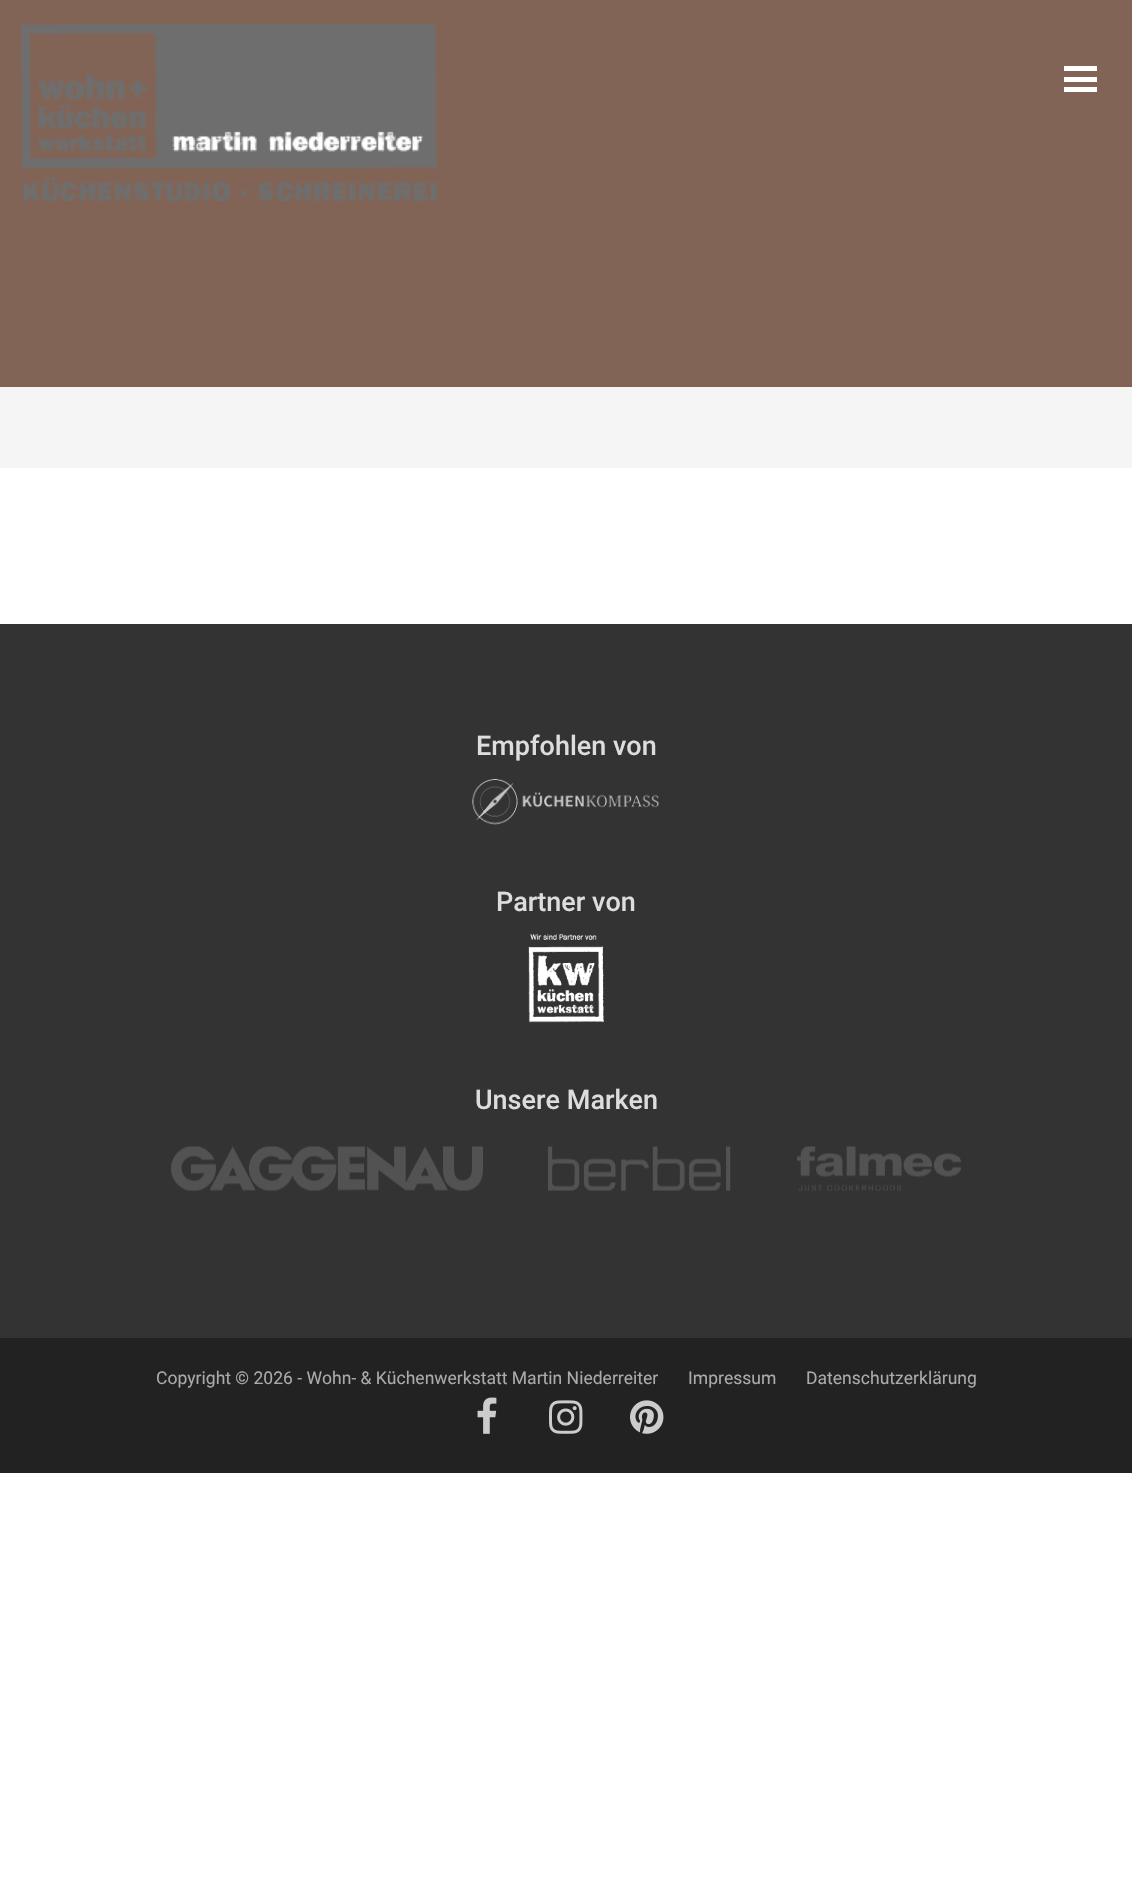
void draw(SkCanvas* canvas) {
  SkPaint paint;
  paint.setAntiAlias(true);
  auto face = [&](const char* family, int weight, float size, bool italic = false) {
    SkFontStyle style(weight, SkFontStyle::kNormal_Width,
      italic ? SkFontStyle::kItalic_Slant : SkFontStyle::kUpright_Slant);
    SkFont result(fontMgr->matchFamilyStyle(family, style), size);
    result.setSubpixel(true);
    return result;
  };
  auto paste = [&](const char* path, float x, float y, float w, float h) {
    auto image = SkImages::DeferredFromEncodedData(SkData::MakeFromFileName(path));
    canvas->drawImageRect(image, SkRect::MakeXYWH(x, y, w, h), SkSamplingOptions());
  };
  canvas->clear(0xffffffff);
  paint.setColor(0xff816456);
  canvas->drawRect(SkRect::MakeXYWH(0, 0, 1132, 387), paint);
  paint.setColor(0xfff5f5f5);
  canvas->drawRect(SkRect::MakeXYWH(0, 387, 1132, 81), paint);
  paste("img/1.png", 21, 24, 417, 177);
  {
    const struct { float x, y, w, h; SkColor color; } items[] = {
      {1064, 66, 33, 5, 0xffffffff},
      {1064, 77, 33, 5, 0xffffffff},
      {1064, 87, 33, 5, 0xffffffff},
      {0, 624, 1132, 714, 0xff333333},
    };
    for (auto [x, y, w, h, color] : items) {
      paint.setColor(color);
      canvas->drawRect(SkRect::MakeXYWH(x, y, w, h), paint);
    }
  }
  paste("img/2.png", 472, 779, 188, 46);
  paste("img/3.png", 528, 933, 76, 90);
  paste("img/4.png", 171, 1146, 312, 45);
  paste("img/5.png", 548, 1146, 183, 45);
  paste("img/6.png", 797, 1146, 164, 45);
  paint.setColor(0xff222222);
  canvas->drawRect(SkRect::MakeXYWH(0, 1338, 1132, 135), paint);
  paste("img/7.png", 477, 1397, 20, 37);
  paste("img/8.png", 549, 1400, 34, 34);
  paste("img/9.png", 630, 1400, 34, 34);
  auto f0 = face("Roboto", 500, 27);
  paint.setColor(0xffdddddd);
  {
    const struct { const char* s; float x, y; } items[] = {
      {"Empfohlen von", 476, 755},
      {"Partner von", 496, 911},
      {"Unsere Marken", 475, 1109},
    };
    for (auto [s, x, y] : items) {
      canvas->drawString(s, x, y, f0, paint);
    }
  }
  auto f1 = face("Roboto", 400, 17.55f);
  paint.setColor(0xffaaaaaa);
  {
    const struct { const char* s; float x, y; } items[] = {
      {"Copyright © 2026 - Wohn- & Küchenwerkstatt Martin Niederreiter", 156, 1384},
      {"Impressum", 688, 1384},
      {"Datenschutzerklärung", 806, 1384},
    };
    for (auto [s, x, y] : items) {
      canvas->drawString(s, x, y, f1, paint);
    }
  }
}
